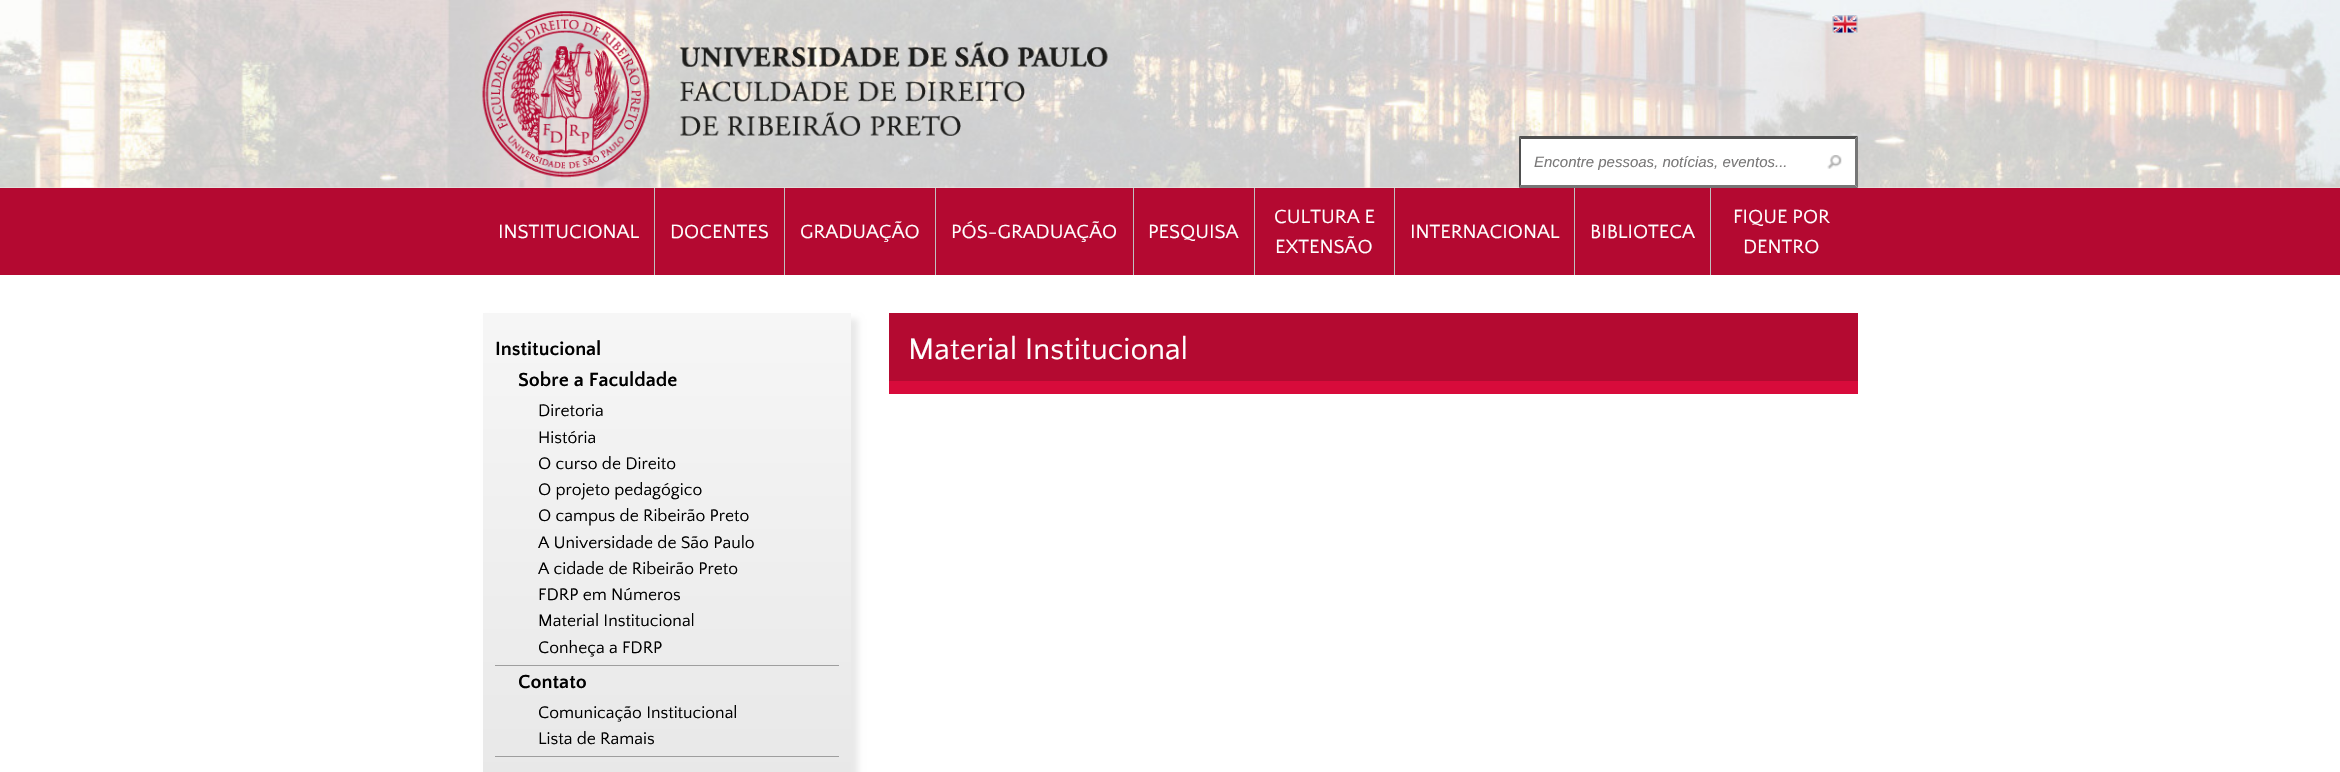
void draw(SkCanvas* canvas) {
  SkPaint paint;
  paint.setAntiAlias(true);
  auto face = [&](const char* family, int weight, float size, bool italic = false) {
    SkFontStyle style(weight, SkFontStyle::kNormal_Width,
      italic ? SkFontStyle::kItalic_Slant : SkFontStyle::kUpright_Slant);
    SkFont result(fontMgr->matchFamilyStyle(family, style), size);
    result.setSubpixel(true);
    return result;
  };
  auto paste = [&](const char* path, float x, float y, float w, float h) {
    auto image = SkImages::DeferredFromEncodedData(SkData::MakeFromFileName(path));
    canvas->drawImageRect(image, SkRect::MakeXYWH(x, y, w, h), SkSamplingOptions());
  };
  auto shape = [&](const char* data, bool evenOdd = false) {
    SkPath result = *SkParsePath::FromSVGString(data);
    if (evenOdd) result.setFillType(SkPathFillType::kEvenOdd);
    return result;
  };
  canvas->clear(0xfff2ede7);
  paste("img/1.png", 0, 0, 2340, 188);
  paste("img/2.png", 482, 11, 626, 167);
  paste("img/3.png", 1832, 15, 26, 19);
  paint.setColor(0xffffffff);
  canvas->drawRect(SkRect::MakeXYWH(1519, 136, 339, 52), paint);
  paste("img/4.png", 1827, 155, 15, 14);
  paint.setColor(0xff4f4f4f);
  canvas->drawPath(shape("M1519 136H1858L1855 139H1521Z"), paint);
  paint.setColor(0xff767676);
  canvas->drawPath(shape("M1858 136V188L1855 185V139Z"), paint);
  canvas->drawPath(shape("M1858 188H1519L1521 185H1855Z"), paint);
  paint.setColor(0xff4f4f4f);
  canvas->drawPath(shape("M1519 188V136L1521 139V185Z"), paint);
  {
    const struct { float x, y, w, h; SkColor color; } items[] = {
      {0, 188, 2340, 87, 0xffb40931},
      {654, 188, 1, 87, 0xffc0c0c0},
      {784, 188, 1, 87, 0xffc0c0c0},
      {935, 188, 1, 87, 0xffc0c0c0},
      {1133, 188, 1, 87, 0xffc0c0c0},
      {1254, 188, 1, 87, 0xffc0c0c0},
      {1394, 188, 1, 87, 0xffc0c0c0},
      {1574, 188, 1, 87, 0xffc0c0c0},
      {1710, 188, 1, 87, 0xffc0c0c0},
      {0, 275, 2340, 497, 0xffffffff},
    };
    for (auto [x, y, w, h, color] : items) {
      paint.setColor(color);
      canvas->drawRect(SkRect::MakeXYWH(x, y, w, h), paint);
    }
  }
  paint.setColor(0xffe9e9e9);
  paint.setMaskFilter(SkMaskFilter::MakeBlur(kNormal_SkBlurStyle, 3));
  canvas->drawRect(SkRect::MakeXYWH(489, 319, 369, 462), paint);
  paint.setMaskFilter(nullptr);
  {
    const SkColor colors[] = {0xfff6f6f6, 0xffcfcfcf};
    const float stops[] = {0, 1};
    const SkPoint ends[] = {{483, 313}, {483, 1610}};
    paint.setShader(SkGradientShader::MakeLinear(ends, colors, stops, 2, SkTileMode::kClamp));
    paint.setAlpha(255);
  }
  canvas->drawRect(SkRect::MakeXYWH(483, 313, 368, 459), paint);
  paint.setShader(nullptr);
  {
    const struct { float x, y, w, h; SkColor color; } items[] = {
      {495, 665, 344, 1, 0xff9e9e9e},
      {495, 756, 344, 1, 0xff9e9e9e},
      {889, 313, 969, 68, 0xffb40a31},
      {889, 381, 969, 13, 0xffd80b3b},
    };
    for (auto [x, y, w, h, color] : items) {
      paint.setColor(color);
      canvas->drawRect(SkRect::MakeXYWH(x, y, w, h), paint);
    }
  }
  auto f0 = face("Liberation Sans", 400, 15, true);
  paint.setColor(0xff797878);
  canvas->drawString("Encontre pessoas, notícias, eventos...", 1534, 167, f0, paint);
  auto f1 = face("Quattrocento Sans", 400, 20);
  paint.setColor(0xffffffff);
  {
    const struct { const char* s; float x, y; } items[] = {
      {"INSTITUCIONAL", 498, 238},
      {"DOCENTES", 670, 238},
      {"GRADUAÇÃO", 800, 238},
      {"PÓS-GRADUAÇÃO", 951, 238},
      {"PESQUISA", 1148, 238},
      {"CULTURA E", 1274, 223},
      {"EXTENSÃO", 1275, 253},
      {"INTERNACIONAL", 1410, 238},
      {"BIBLIOTECA", 1590, 238},
      {"FIQUE POR", 1733, 223},
      {"DENTRO", 1743, 253},
    };
    for (auto [s, x, y] : items) {
      canvas->drawString(s, x, y, f1, paint);
    }
  }
  auto f2 = face("Quattrocento Sans", 700, 20);
  paint.setColor(0xff000000);
  canvas->drawString("Institucional", 495, 355, f2, paint);
  canvas->drawString("Sobre a Faculdade", 518, 386, f2, paint);
  auto f3 = face("Quattrocento Sans", 400, 17.5f);
  {
    const struct { const char* s; float x, y; } items[] = {
      {"Diretoria", 538, 416},
      {"História", 538, 443},
      {"O curso de Direito", 538, 469},
      {"O projeto pedagógico", 538, 495},
      {"O campus de Ribeirão Preto", 538, 521},
      {"A Universidade de São Paulo", 538, 548},
      {"A cidade de Ribeirão Preto", 538, 574},
      {"FDRP em Números", 538, 600},
      {"Material Institucional", 538, 626},
      {"Conheça a FDRP", 538, 653},
    };
    for (auto [s, x, y] : items) {
      canvas->drawString(s, x, y, f3, paint);
    }
  }
  canvas->drawString("Contato", 518, 688, f2, paint);
  canvas->drawString("Comunicação Institucional", 538, 718, f3, paint);
  canvas->drawString("Lista de Ramais", 538, 744, f3, paint);
  auto f4 = face("Quattrocento Sans", 400, 31.25f);
  paint.setColor(0xffffffff);
  canvas->drawString("Material Institucional", 908, 359, f4, paint);
}
